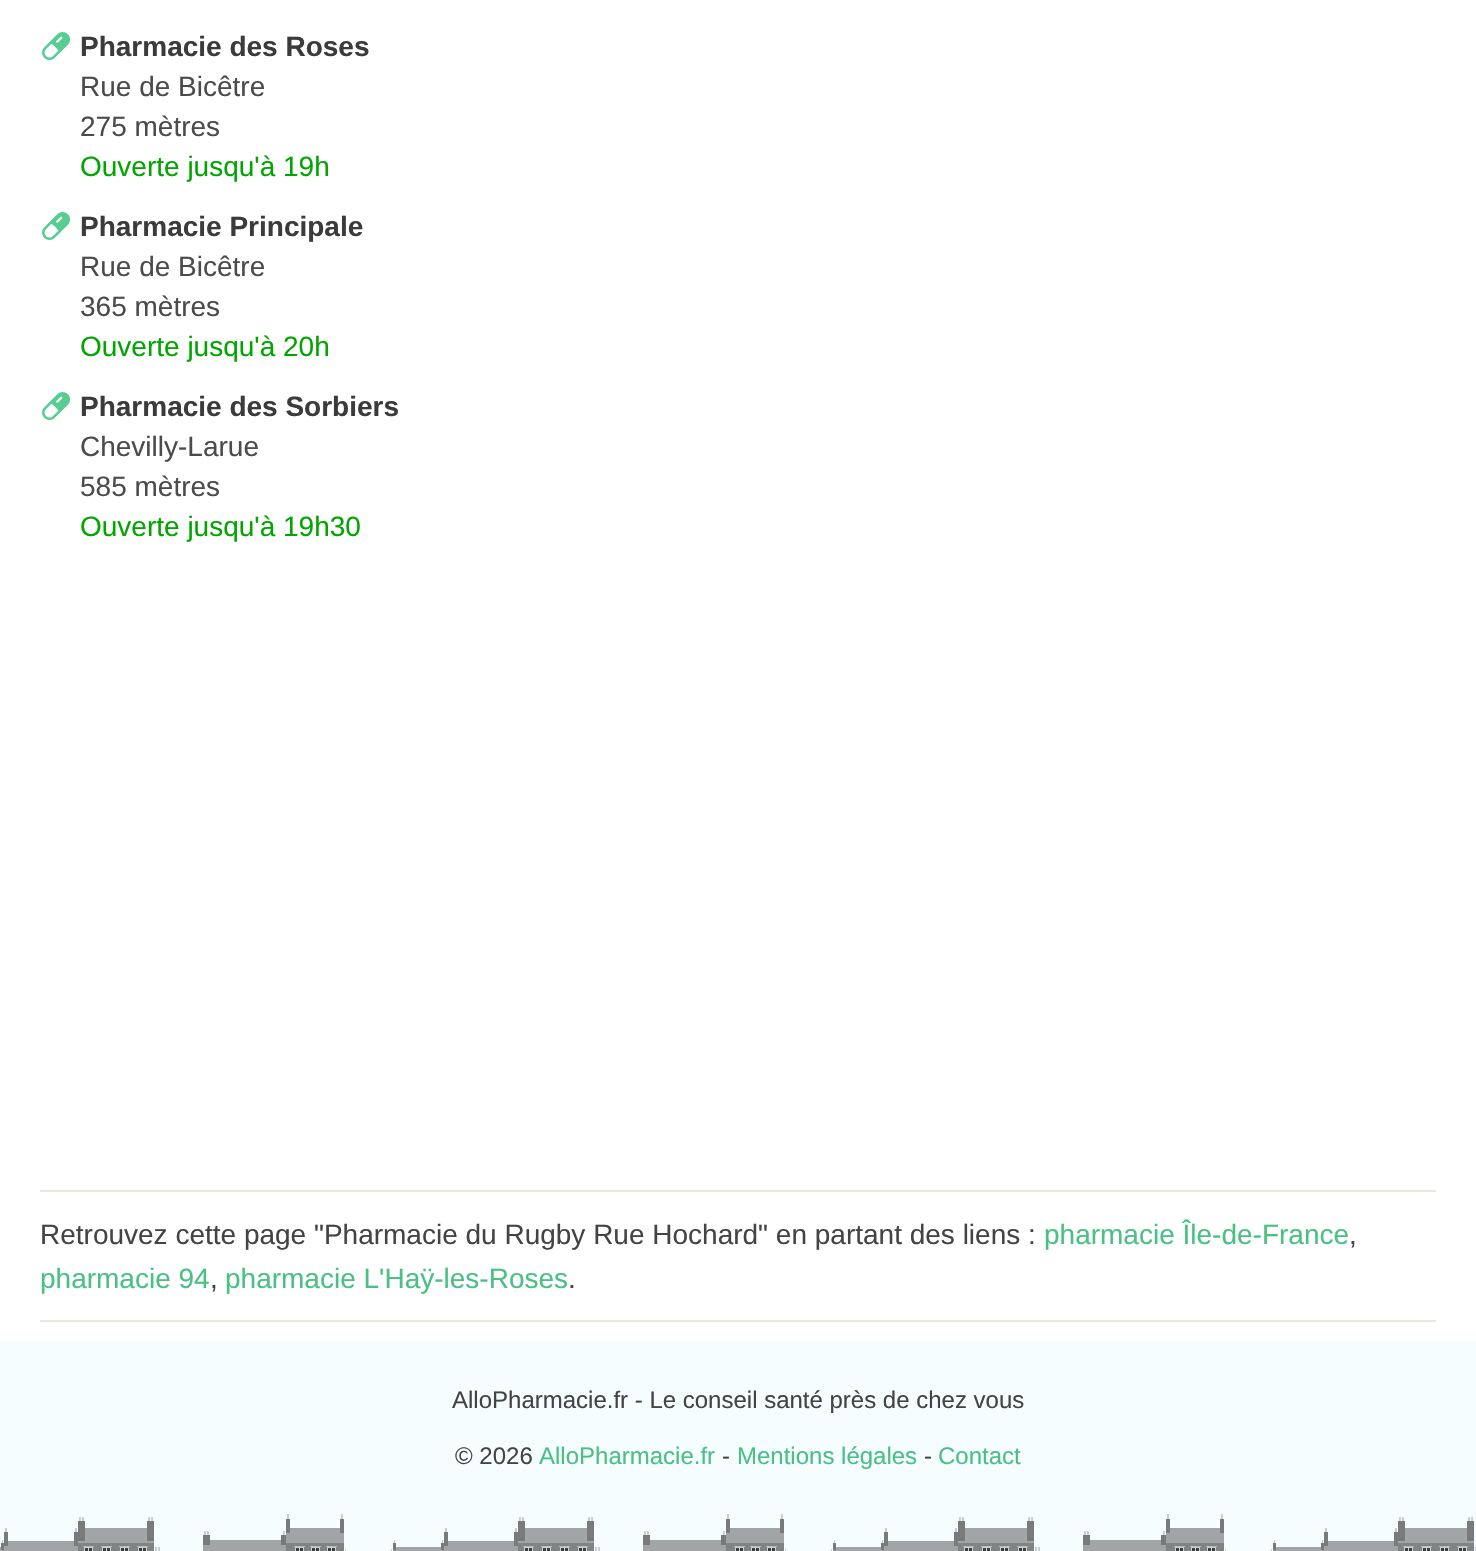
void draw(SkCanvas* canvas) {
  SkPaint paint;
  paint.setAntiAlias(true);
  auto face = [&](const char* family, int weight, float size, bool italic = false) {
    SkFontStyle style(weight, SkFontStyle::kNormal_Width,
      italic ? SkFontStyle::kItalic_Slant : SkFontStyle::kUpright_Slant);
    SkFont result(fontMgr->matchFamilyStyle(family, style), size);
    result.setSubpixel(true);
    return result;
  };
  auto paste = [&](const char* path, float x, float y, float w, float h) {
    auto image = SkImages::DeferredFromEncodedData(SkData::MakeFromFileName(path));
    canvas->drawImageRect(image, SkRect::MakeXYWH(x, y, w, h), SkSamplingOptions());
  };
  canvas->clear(0xfff5fdff);
  paint.setColor(0xffffffff);
  canvas->drawRect(SkRect::MakeXYWH(0, 0, 1476, 1342), paint);
  paint.setColor(0xffeae9df);
  canvas->drawRect(SkRect::MakeXYWH(40, 1190, 1396, 2), paint);
  paste("img/1.png", 42, 32, 28, 28);
  paste("img/1.png", 42, 212, 28, 28);
  paste("img/1.png", 42, 392, 28, 28);
  canvas->drawRect(SkRect::MakeXYWH(40, 1320, 1396, 2), paint);
  paste("img/2.png", 0, 1514, 1476, 37);
  auto f0 = face("Liberation Sans", 700, 28);
  paint.setColor(0xff3b3b3b);
  canvas->drawString("Pharmacie des Roses", 80, 56, f0, paint);
  auto f1 = face("Liberation Sans", 400, 28);
  paint.setColor(0xff4b4b4b);
  canvas->drawString("Rue de Bicêtre", 80, 96, f1, paint);
  canvas->drawString("275 mètres", 80, 136, f1, paint);
  paint.setColor(0xff00a500);
  canvas->drawString("Ouverte jusqu'à 19h", 80, 176, f1, paint);
  paint.setColor(0xff3b3b3b);
  canvas->drawString("Pharmacie Principale", 80, 236, f0, paint);
  paint.setColor(0xff4b4b4b);
  canvas->drawString("Rue de Bicêtre", 80, 276, f1, paint);
  canvas->drawString("365 mètres", 80, 316, f1, paint);
  paint.setColor(0xff00a500);
  canvas->drawString("Ouverte jusqu'à 20h", 80, 356, f1, paint);
  paint.setColor(0xff3b3b3b);
  canvas->drawString("Pharmacie des Sorbiers", 80, 416, f0, paint);
  paint.setColor(0xff4b4b4b);
  canvas->drawString("Chevilly-Larue", 80, 456, f1, paint);
  canvas->drawString("585 mètres", 80, 496, f1, paint);
  paint.setColor(0xff00a500);
  canvas->drawString("Ouverte jusqu'à 19h30", 80, 536, f1, paint);
  paint.setColor(0xff444444);
  canvas->drawString("Retrouvez cette page \"Pharmacie du Rugby Rue Hochard\" en partant des liens :", 40, 1244, f1, paint);
  paint.setColor(0xff4ac084);
  canvas->drawString("pharmacie Île-de-France", 1044, 1244, f1, paint);
  paint.setColor(0xff444444);
  canvas->drawString(",", 1349, 1244, f1, paint);
  paint.setColor(0xff4ac084);
  canvas->drawString("pharmacie 94", 40, 1288, f1, paint);
  paint.setColor(0xff444444);
  canvas->drawString(",", 210, 1288, f1, paint);
  paint.setColor(0xff4ac084);
  canvas->drawString("pharmacie L'Haÿ-les-Roses", 225, 1288, f1, paint);
  paint.setColor(0xff444444);
  canvas->drawString(".", 568, 1288, f1, paint);
  auto f2 = face("Liberation Sans", 400, 24);
  canvas->drawString("AlloPharmacie.fr - Le conseil santé près de chez vous", 452, 1408, f2, paint);
  canvas->drawString("© 2026", 455, 1464, f2, paint);
  paint.setColor(0xff4ac084);
  canvas->drawString("AlloPharmacie.fr", 539, 1464, f2, paint);
  paint.setColor(0xff444444);
  canvas->drawString("-", 722, 1464, f2, paint);
  paint.setColor(0xff4ac084);
  canvas->drawString("Mentions légales", 737, 1464, f2, paint);
  paint.setColor(0xff444444);
  canvas->drawString("-", 924, 1464, f2, paint);
  paint.setColor(0xff4ac084);
  canvas->drawString("Contact", 938, 1464, f2, paint);
}
